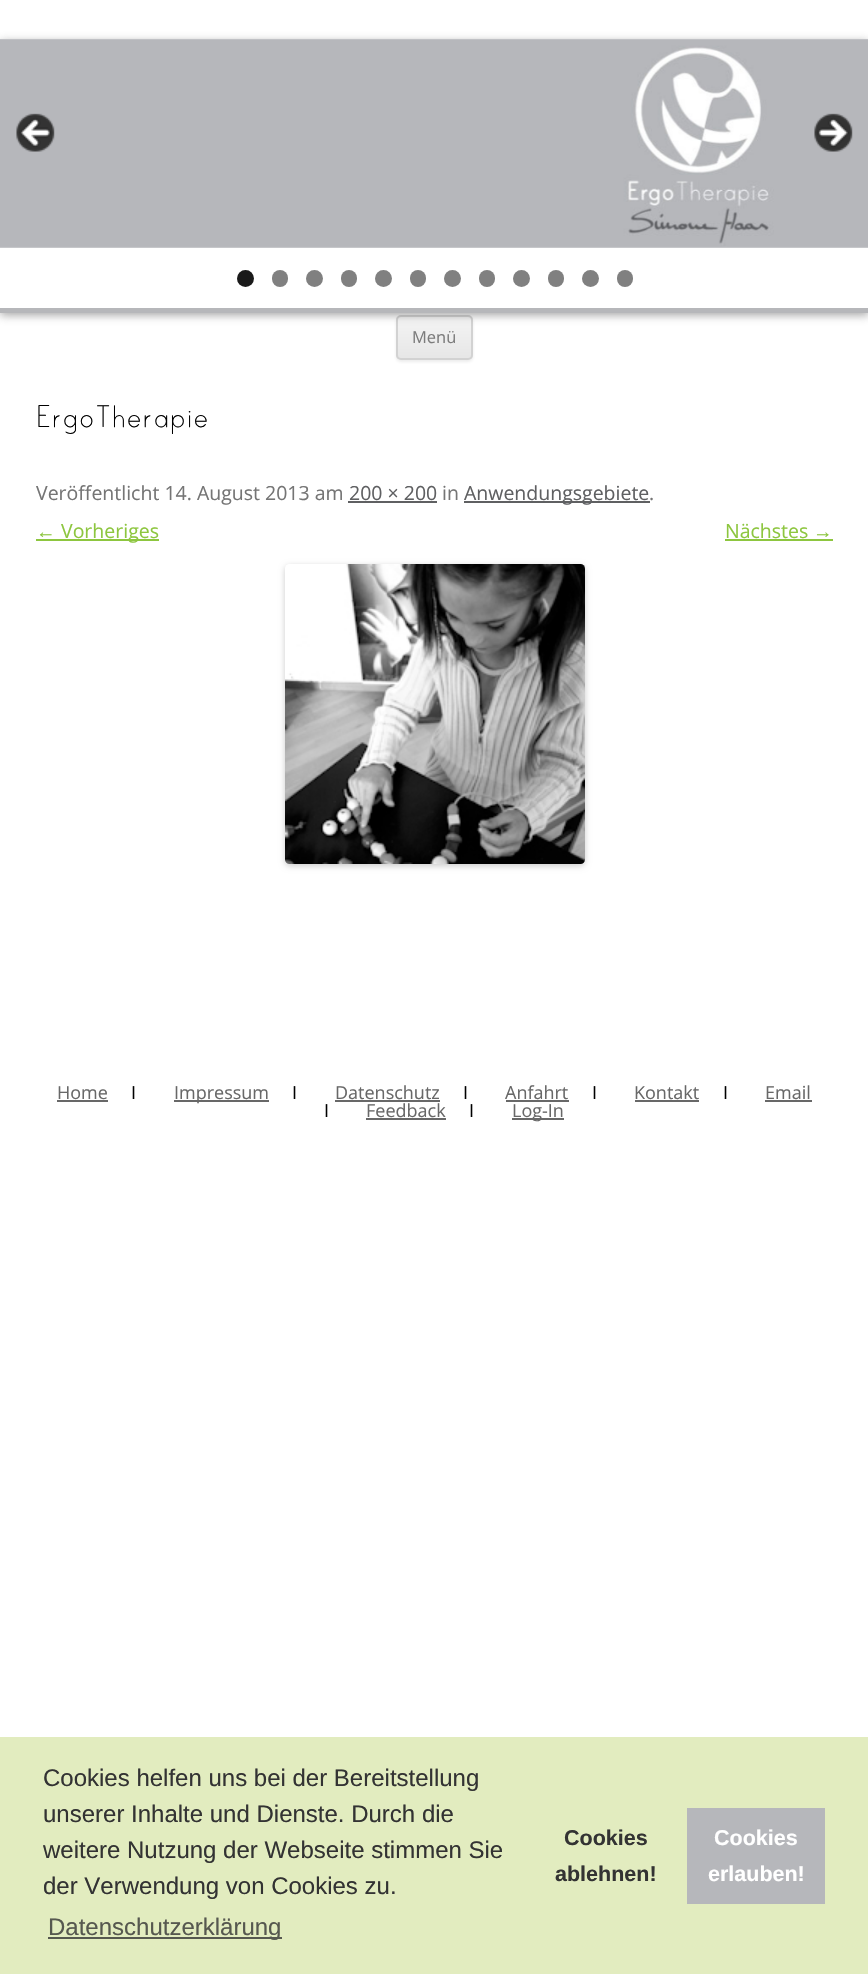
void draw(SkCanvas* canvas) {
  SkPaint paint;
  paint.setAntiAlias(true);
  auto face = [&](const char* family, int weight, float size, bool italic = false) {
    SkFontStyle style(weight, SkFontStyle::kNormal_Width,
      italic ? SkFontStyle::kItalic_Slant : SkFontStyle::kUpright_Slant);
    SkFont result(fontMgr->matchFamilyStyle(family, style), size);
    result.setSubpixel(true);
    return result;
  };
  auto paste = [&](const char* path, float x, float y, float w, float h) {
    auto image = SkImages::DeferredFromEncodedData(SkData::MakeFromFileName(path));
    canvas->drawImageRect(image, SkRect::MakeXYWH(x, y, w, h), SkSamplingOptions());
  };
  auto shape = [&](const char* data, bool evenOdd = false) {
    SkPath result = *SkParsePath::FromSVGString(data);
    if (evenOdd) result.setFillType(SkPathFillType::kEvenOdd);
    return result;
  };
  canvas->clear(0xffffffff);
  paint.setColor(0x1a404040);
  paint.setMaskFilter(SkMaskFilter::MakeBlur(kNormal_SkBlurStyle, 1.5f));
  canvas->drawRoundRect(SkRect::MakeXYWH(396, 317, 77, 45), 5, 5, paint);
  paint.setMaskFilter(nullptr);
  canvas->save();
  canvas->clipPath(shape("M401 315H468C471 315 473 317 473 320V355C473 358 471 360 468 360H401C398 360 396 358 396 355V320C396 317 398 315 401 315Z"), true);
  {
    const SkColor colors[] = {0xfff4f4f4, 0xffe6e6e6};
    const float stops[] = {0, 1};
    const SkPoint ends[] = {{434, 317}, {434, 359}};
    paint.setShader(SkGradientShader::MakeLinear(ends, colors, stops, 2, SkTileMode::kClamp));
    paint.setAlpha(255);
  }
  canvas->drawRect(SkRect::MakeXYWH(396, 317, 77, 42), paint);
  canvas->restore();
  paint.setStroke(true);
  paint.setStrokeWidth(2);
  paint.setShader(nullptr);
  paint.setColor(0xffd2d2d2);
  canvas->drawRoundRect(SkRect::MakeXYWH(397, 316, 75, 43), 4, 4, paint);
  canvas->save();
  canvas->clipPath(shape("M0 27H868V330H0ZM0 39H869V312H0Z", true), true);
  paint.setStroke(false);
  paint.setColor(0x99646464);
  paint.setMaskFilter(SkMaskFilter::MakeBlur(kNormal_SkBlurStyle, 4.5f));
  canvas->drawRect(SkRect::MakeXYWH(0, 42, 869, 273), paint);
  paint.setMaskFilter(nullptr);
  canvas->restore();
  paint.setColor(0xffb6b7ba);
  canvas->drawRect(SkRect::MakeXYWH(0, 308, 868, 5), paint);
  paste("img/1.png", 0, 39, 868, 209);
  paste("img/2.png", 16, 113, 39, 39);
  paste("img/3.png", 814, 113, 39, 39);
  paint.setColor(0xff1a1a1a);
  canvas->drawCircle(245.5f, 278.5f, 8.5f, paint);
  paint.setColor(0xff808080);
  canvas->drawRoundRect(SkRect::MakeXYWH(272, 270, 16, 17), 8, 8, paint);
  canvas->drawCircle(314.5f, 278.5f, 8.5f, paint);
  canvas->drawRoundRect(SkRect::MakeXYWH(341, 270, 16, 17), 8, 8, paint);
  canvas->drawCircle(383.5f, 278.5f, 8.5f, paint);
  canvas->drawRoundRect(SkRect::MakeXYWH(410, 270, 16, 17), 8, 8, paint);
  canvas->drawCircle(452.5f, 278.5f, 8.5f, paint);
  canvas->drawRoundRect(SkRect::MakeXYWH(479, 270, 16, 17), 8, 8, paint);
  canvas->drawCircle(521.5f, 278.5f, 8.5f, paint);
  canvas->drawRoundRect(SkRect::MakeXYWH(548, 270, 16, 17), 8, 8, paint);
  canvas->drawCircle(590.5f, 278.5f, 8.5f, paint);
  canvas->drawRoundRect(SkRect::MakeXYWH(617, 270, 16, 17), 8, 8, paint);
  {
    const struct { float x, y, w, h; SkColor color; } items[] = {
      {348, 501, 89, 2, 0xff5f6062},
      {464, 501, 186, 2, 0xff5f6062},
      {36, 539, 123, 2, 0xff8dc63f},
      {725, 539, 108, 2, 0xff8dc63f},
    };
    for (auto [x, y, w, h, color] : items) {
      paint.setColor(color);
      canvas->drawRect(SkRect::MakeXYWH(x, y, w, h), paint);
    }
  }
  paint.setColor(0x33000000);
  paint.setMaskFilter(SkMaskFilter::MakeBlur(kNormal_SkBlurStyle, 3));
  canvas->drawRoundRect(SkRect::MakeXYWH(285, 566, 300, 300), 5, 5, paint);
  paint.setMaskFilter(nullptr);
  paste("img/4.png", 285, 564, 300, 300);
  {
    const struct { float x, y, w, h; SkColor color; } items[] = {
      {57, 1100, 51, 2, 0xff686868},
      {174, 1100, 95, 2, 0xff686868},
      {335, 1100, 105, 2, 0xff686868},
      {506, 1100, 63, 2, 0xff686868},
      {635, 1100, 64, 2, 0xff686868},
      {765, 1100, 47, 2, 0xff686868},
      {366, 1118, 80, 2, 0xff686868},
      {512, 1118, 52, 2, 0xff686868},
      {0, 1737, 868, 237, 0xffe2ecbf},
      {48, 1937, 234, 2, 0xff56584f},
      {687, 1808, 138, 96, 0xffb6b7bb},
    };
    for (auto [x, y, w, h, color] : items) {
      paint.setColor(color);
      canvas->drawRect(SkRect::MakeXYWH(x, y, w, h), paint);
    }
  }
  auto f0 = face("Open Sans", 400, 16.5f);
  paint.setColor(0xff7c7c7c);
  canvas->drawString("Menü", 412, 343, f0, paint);
  auto f1 = face("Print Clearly", 400, 36);
  paint.setColor(0xff000000);
  canvas->drawString("ErgoTherapie", 36, 427, f1, paint);
  auto f2 = face("Open Sans", 400, 19.5f);
  paint.setColor(0xff757575);
  canvas->drawString("Veröffentlicht 14. August 2013 am", 36, 500, f2, paint);
  paint.setColor(0xff5f6062);
  canvas->drawString("200 × 200", 349, 500, f2, paint);
  paint.setColor(0xff757575);
  canvas->drawString("in", 442, 500, f2, paint);
  paint.setColor(0xff5f6062);
  canvas->drawString("Anwendungsgebiete", 464, 500, f2, paint);
  paint.setColor(0xff757575);
  canvas->drawString(".", 649, 500, f2, paint);
  auto f3 = face("Liberation Sans", 400, 19.5f);
  paint.setColor(0xff8dc63f);
  canvas->drawString("←", 36, 538, f3, paint);
  canvas->drawString("Vorheriges", 61, 538, f2, paint);
  canvas->drawString("Nächstes", 725, 538, f2, paint);
  canvas->drawString("→", 813, 538, f3, paint);
  auto f4 = face("Open Sans", 400, 18);
  paint.setColor(0xff686868);
  canvas->drawString("Home", 57, 1099, f4, paint);
  paint.setColor(0xff000000);
  canvas->drawString("I", 131, 1099, f4, paint);
  paint.setColor(0xff686868);
  canvas->drawString("Impressum", 174, 1099, f4, paint);
  paint.setColor(0xff000000);
  canvas->drawString("I", 292, 1099, f4, paint);
  paint.setColor(0xff686868);
  canvas->drawString("Datenschutz", 335, 1099, f4, paint);
  paint.setColor(0xff000000);
  canvas->drawString("I", 463, 1099, f4, paint);
  paint.setColor(0xff686868);
  canvas->drawString("Anfahrt", 505, 1099, f4, paint);
  paint.setColor(0xff000000);
  canvas->drawString("I", 592, 1099, f4, paint);
  paint.setColor(0xff686868);
  canvas->drawString("Kontakt", 634, 1099, f4, paint);
  paint.setColor(0xff000000);
  canvas->drawString("I", 723, 1099, f4, paint);
  paint.setColor(0xff686868);
  canvas->drawString("Email", 765, 1099, f4, paint);
  paint.setColor(0xff000000);
  canvas->drawString("I", 324, 1117, f4, paint);
  paint.setColor(0xff686868);
  canvas->drawString("Feedback", 366, 1117, f4, paint);
  paint.setColor(0xff000000);
  canvas->drawString("I", 469, 1117, f4, paint);
  paint.setColor(0xff686868);
  canvas->drawString("Log-In", 512, 1117, f4, paint);
  auto f5 = face("Liberation Sans", 400, 24);
  paint.setColor(0xff333333);
  {
    const struct { const char* s; float x, y; } items[] = {
      {"Cookies helfen uns bei der Bereitstellung", 43, 1786},
      {"unserer Inhalte und Dienste. Durch die", 43, 1822},
      {"weitere Nutzung der Webseite stimmen Sie", 43, 1858},
      {"der Verwendung von Cookies zu.", 43, 1894},
    };
    for (auto [s, x, y] : items) {
      canvas->drawString(s, x, y, f5, paint);
    }
  }
  paint.setColor(0xff56584f);
  canvas->drawString("Datenschutzerklärung", 48, 1935, f5, paint);
  auto f6 = face("Liberation Sans", 700, 21.5f);
  paint.setColor(0xff333333);
  canvas->drawString("Cookies", 564, 1845, f6, paint);
  canvas->drawString("ablehnen!", 555, 1881, f6, paint);
  paint.setColor(0xffffffff);
  canvas->drawString("Cookies", 714, 1845, f6, paint);
  canvas->drawString("erlauben!", 708, 1881, f6, paint);
}
